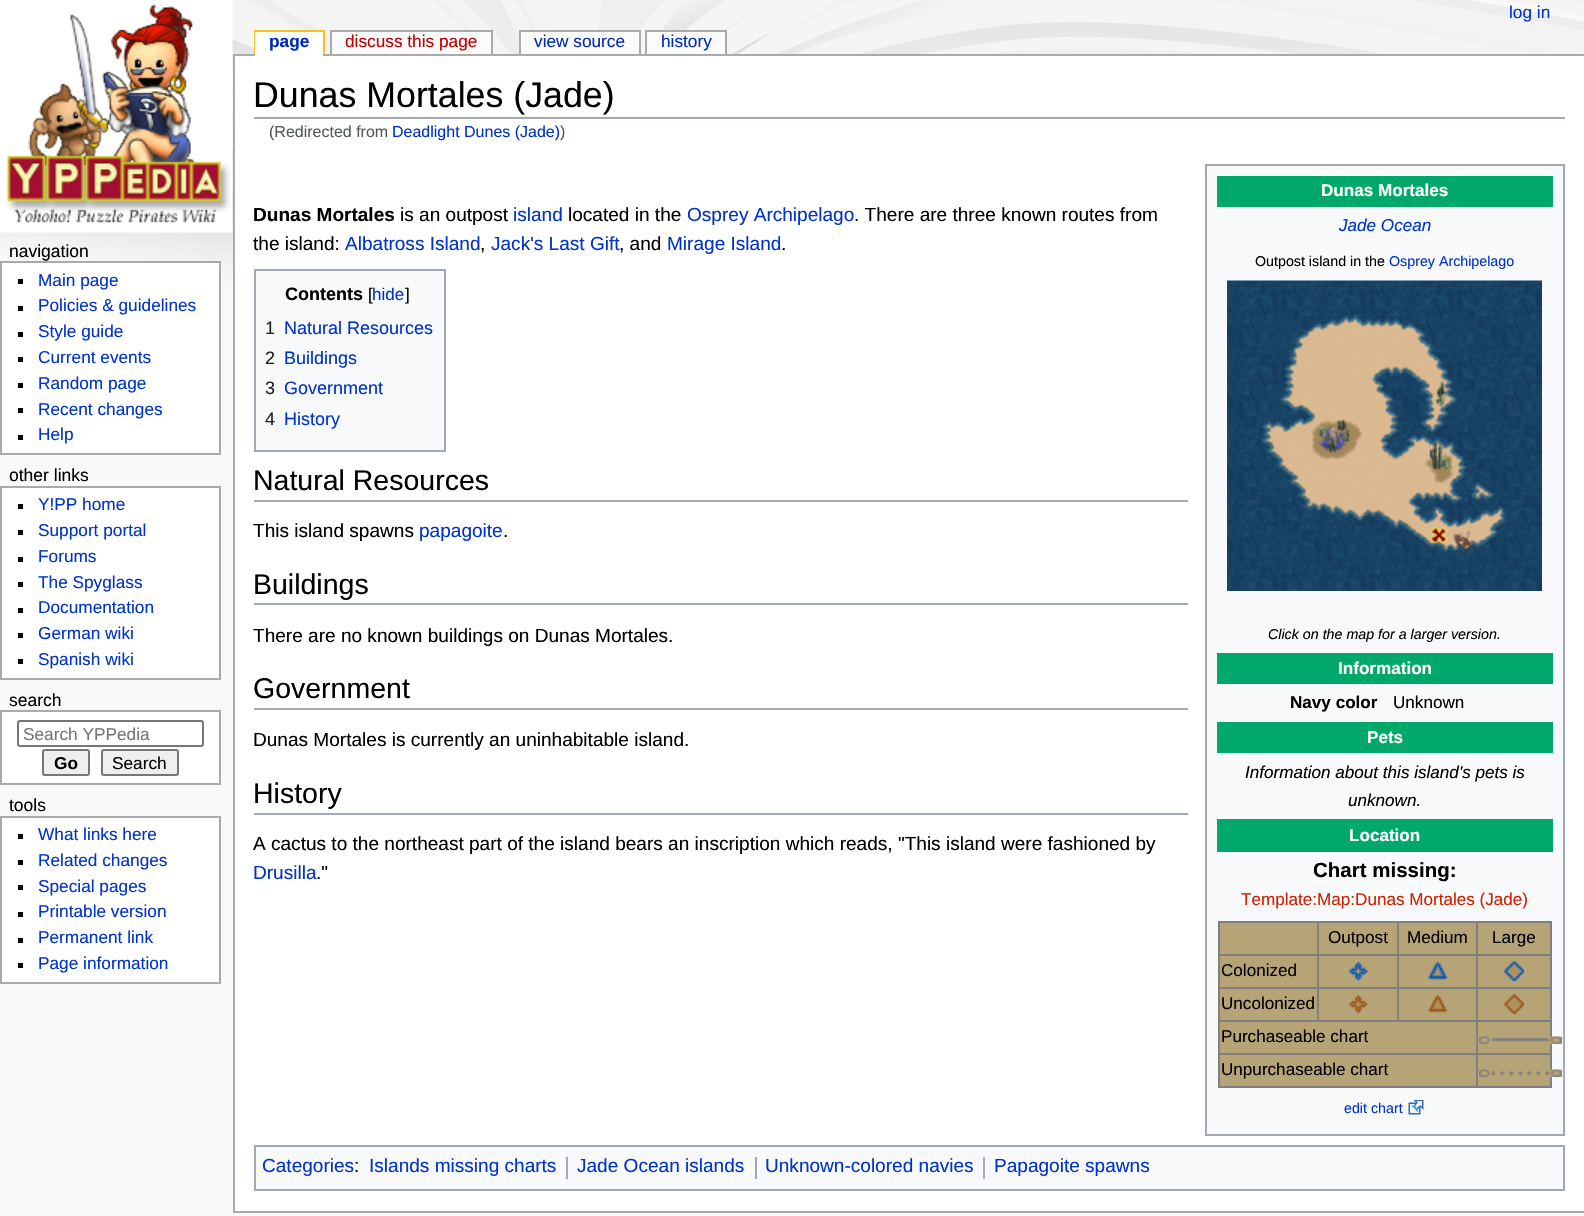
void draw(SkCanvas* canvas) {
  SkPaint paint;
  paint.setAntiAlias(true);
  auto face = [&](const char* family, int weight, float size, bool italic = false) {
    SkFontStyle style(weight, SkFontStyle::kNormal_Width,
      italic ? SkFontStyle::kItalic_Slant : SkFontStyle::kUpright_Slant);
    SkFont result(fontMgr->matchFamilyStyle(family, style), size);
    result.setSubpixel(true);
    return result;
  };
  auto paste = [&](const char* path, float x, float y, float w, float h) {
    auto image = SkImages::DeferredFromEncodedData(SkData::MakeFromFileName(path));
    canvas->drawImageRect(image, SkRect::MakeXYWH(x, y, w, h), SkSamplingOptions());
  };
  canvas->clear(0xfff9f9f9);
  paste("img/1.png", 0, 0, 1584, 315);
  paste("img/2.png", 0, 0, 233, 233);
  {
    const struct { float x, y, w, h; SkColor color; } items[] = {
      {254, 30, 70, 2, 0xfffabd23},
      {323, 30, 2, 24, 0xfffabd23},
      {254, 30, 2, 24, 0xfffabd23},
      {233, 54, 1351, 2, 0xffaaaaaa},
      {255, 32, 68, 24, 0xffffffff},
      {330, 30, 162, 2, 0xffaaaaaa},
      {491, 30, 2, 24, 0xffaaaaaa},
      {330, 30, 2, 24, 0xffaaaaaa},
      {332, 32, 159, 22, 0xfffbfbfb},
      {519, 30, 122, 2, 0xffaaaaaa},
      {639, 30, 2, 24, 0xffaaaaaa},
      {519, 30, 2, 24, 0xffaaaaaa},
      {521, 32, 118, 22, 0xfffbfbfb},
      {645, 30, 81, 2, 0xffaaaaaa},
      {725, 30, 2, 24, 0xffaaaaaa},
      {645, 30, 2, 24, 0xffaaaaaa},
      {647, 32, 78, 22, 0xfffbfbfb},
    };
    for (auto [x, y, w, h, color] : items) {
      paint.setColor(color);
      canvas->drawRect(SkRect::MakeXYWH(x, y, w, h), paint);
    }
  }
  paint.setColor(0xffffffff);
  canvas->drawRect(SkRect::MakeXYWH(1, 262, 219, 192), paint);
  paint.setStroke(true);
  paint.setStrokeWidth(2);
  paint.setColor(0xffaaaaaa);
  canvas->drawRect(SkRect::MakeXYWH(1, 262, 219, 192), paint);
  paint.setStroke(false);
  {
    const struct { float x, y, w, h; SkColor color; } items[] = {
      {18, 279, 5, 5, 0xff000000},
      {18, 306, 5, 5, 0xff000000},
      {18, 332, 5, 5, 0xff000000},
      {18, 357, 5, 5, 0xff000000},
      {18, 383, 5, 5, 0xff000000},
      {18, 408, 5, 5, 0xff000000},
      {18, 435, 5, 5, 0xff000000},
    };
    for (auto [x, y, w, h, color] : items) {
      paint.setColor(color);
      canvas->drawRect(SkRect::MakeXYWH(x, y, w, h), paint);
    }
  }
  paint.setColor(0xffffffff);
  canvas->drawRect(SkRect::MakeXYWH(1, 487, 219, 192), paint);
  paint.setStroke(true);
  paint.setColor(0xffaaaaaa);
  canvas->drawRect(SkRect::MakeXYWH(1, 487, 219, 192), paint);
  paint.setStroke(false);
  {
    const struct { float x, y, w, h; SkColor color; } items[] = {
      {18, 504, 5, 5, 0xff000000},
      {18, 530, 5, 5, 0xff000000},
      {18, 557, 5, 5, 0xff000000},
      {18, 582, 5, 5, 0xff000000},
      {18, 608, 5, 5, 0xff000000},
      {18, 633, 5, 5, 0xff000000},
      {18, 659, 5, 5, 0xff000000},
    };
    for (auto [x, y, w, h, color] : items) {
      paint.setColor(color);
      canvas->drawRect(SkRect::MakeXYWH(x, y, w, h), paint);
    }
  }
  paint.setColor(0xffffffff);
  canvas->drawRect(SkRect::MakeXYWH(1, 711, 219, 73), paint);
  paint.setStroke(true);
  paint.setColor(0xffaaaaaa);
  canvas->drawRect(SkRect::MakeXYWH(1, 711, 219, 73), paint);
  paint.setColor(0xff767676);
  canvas->drawRoundRect(SkRect::MakeXYWH(18, 721, 185, 25), 2, 2, paint);
  paint.setStroke(false);
  paint.setColor(0xffefefef);
  canvas->drawRoundRect(SkRect::MakeXYWH(43, 750, 46, 25), 2, 2, paint);
  paint.setStroke(true);
  paint.setColor(0xff767676);
  canvas->drawRoundRect(SkRect::MakeXYWH(43, 750, 46, 25), 2, 2, paint);
  paint.setStroke(false);
  paint.setColor(0xffefefef);
  canvas->drawRoundRect(SkRect::MakeXYWH(102, 750, 76, 25), 2, 2, paint);
  paint.setStroke(true);
  paint.setColor(0xff767676);
  canvas->drawRoundRect(SkRect::MakeXYWH(102, 750, 76, 25), 2, 2, paint);
  paint.setStroke(false);
  paint.setColor(0xffffffff);
  canvas->drawRect(SkRect::MakeXYWH(1, 817, 219, 166), paint);
  paint.setStroke(true);
  paint.setColor(0xffaaaaaa);
  canvas->drawRect(SkRect::MakeXYWH(1, 817, 219, 166), paint);
  paint.setStroke(false);
  {
    const struct { float x, y, w, h; SkColor color; } items[] = {
      {18, 834, 5, 5, 0xff000000},
      {18, 860, 5, 5, 0xff000000},
      {18, 885, 5, 5, 0xff000000},
      {18, 912, 5, 5, 0xff000000},
      {18, 938, 5, 5, 0xff000000},
      {18, 963, 5, 5, 0xff000000},
      {235, 56, 1349, 1155, 0xffffffff},
      {233, 1211, 1351, 2, 0xffaaaaaa},
      {233, 54, 2, 1158, 0xffaaaaaa},
      {254, 117, 1311, 2, 0xffa2a9b1},
    };
    for (auto [x, y, w, h, color] : items) {
      paint.setColor(color);
      canvas->drawRect(SkRect::MakeXYWH(x, y, w, h), paint);
    }
  }
  paint.setColor(0xfff8f9fa);
  canvas->drawRect(SkRect::MakeXYWH(1206, 165, 358, 970), paint);
  paint.setStroke(true);
  paint.setColor(0xffa2a9b1);
  canvas->drawRect(SkRect::MakeXYWH(1206, 165, 358, 970), paint);
  paint.setStroke(false);
  paint.setColor(0xff00a86b);
  canvas->drawRect(SkRect::MakeXYWH(1217, 176, 336, 31), paint);
  paste("img/3.png", 1227, 280, 315, 311);
  {
    const struct { float x, y, w, h; SkColor color; } items[] = {
      {1217, 653, 336, 31, 0xff00a86b},
      {1217, 722, 336, 31, 0xff00a86b},
      {1217, 819, 336, 33, 0xff00a86b},
      {1220, 923, 330, 163, 0xffb6a476},
      {1218, 921, 333, 2, 0xff808080},
      {1550, 921, 2, 167, 0xff808080},
      {1218, 1086, 333, 2, 0xff808080},
      {1218, 921, 2, 167, 0xff808080},
      {1476, 954, 75, 2, 0xff808080},
      {1476, 987, 75, 2, 0xff808080},
      {1476, 1020, 75, 2, 0xff808080},
      {1476, 1053, 75, 2, 0xff808080},
      {1476, 1053, 2, 35, 0xff808080},
      {1218, 1053, 260, 2, 0xff808080},
      {1476, 1020, 2, 35, 0xff808080},
      {1218, 1020, 260, 2, 0xff808080},
      {1476, 987, 2, 35, 0xff808080},
      {1397, 987, 81, 2, 0xff808080},
      {1476, 954, 2, 35, 0xff808080},
      {1397, 954, 81, 2, 0xff808080},
      {1397, 987, 2, 35, 0xff808080},
      {1317, 987, 81, 2, 0xff808080},
      {1397, 954, 2, 35, 0xff808080},
      {1317, 954, 81, 2, 0xff808080},
      {1317, 987, 2, 35, 0xff808080},
      {1218, 987, 101, 2, 0xff808080},
      {1317, 954, 2, 35, 0xff808080},
      {1218, 954, 101, 2, 0xff808080},
      {1317, 921, 2, 35, 0xff808080},
      {1397, 921, 2, 35, 0xff808080},
      {1476, 921, 2, 35, 0xff808080},
    };
    for (auto [x, y, w, h, color] : items) {
      paint.setColor(color);
      canvas->drawRect(SkRect::MakeXYWH(x, y, w, h), paint);
    }
  }
  paste("img/4.png", 1348, 961, 20, 20);
  paste("img/5.png", 1428, 961, 20, 19);
  paste("img/6.png", 1504, 961, 20, 20);
  paste("img/7.png", 1348, 994, 20, 20);
  paste("img/8.png", 1428, 994, 20, 19);
  paste("img/9.png", 1504, 994, 20, 20);
  canvas->drawRect(SkRect::MakeXYWH(1490, 1037, 72, 7), paint);
  paste("img/10.png", 1479, 1036, 83, 8);
  canvas->drawRect(SkRect::MakeXYWH(1490, 1070, 72, 7), paint);
  paste("img/11.png", 1479, 1069, 83, 8);
  paste("img/12.png", 1408, 1100, 16, 15);
  paint.setColor(0xfff8f9fa);
  canvas->drawRect(SkRect::MakeXYWH(255, 270, 190, 181), paint);
  paint.setStroke(true);
  paint.setColor(0xffa2a9b1);
  canvas->drawRect(SkRect::MakeXYWH(255, 270, 190, 181), paint);
  paint.setStroke(false);
  {
    const struct { float x, y, w, h; SkColor color; } items[] = {
      {254, 500, 934, 2, 0xffa2a9b1},
      {254, 603, 934, 2, 0xffa2a9b1},
      {254, 708, 934, 2, 0xffa2a9b1},
      {254, 813, 934, 2, 0xffa2a9b1},
    };
    for (auto [x, y, w, h, color] : items) {
      paint.setColor(color);
      canvas->drawRect(SkRect::MakeXYWH(x, y, w, h), paint);
    }
  }
  paint.setColor(0xfff8f9fa);
  canvas->drawRect(SkRect::MakeXYWH(255, 1146, 1309, 44), paint);
  paint.setStroke(true);
  paint.setColor(0xffa2a9b1);
  canvas->drawRect(SkRect::MakeXYWH(255, 1146, 1309, 44), paint);
  paint.setStroke(false);
  {
    const struct { float x, y, w, h; SkColor color; } items[] = {
      {566, 1157, 2, 22, 0xffa2a9b1},
      {755, 1157, 2, 22, 0xffa2a9b1},
      {983, 1157, 2, 22, 0xffa2a9b1},
    };
    for (auto [x, y, w, h, color] : items) {
      paint.setColor(color);
      canvas->drawRect(SkRect::MakeXYWH(x, y, w, h), paint);
    }
  }
  auto f0 = face("Liberation Sans", 400, 17.25f);
  paint.setColor(0xff0033cc);
  canvas->drawString("log in", 1509, 18, f0, paint);
  auto f1 = face("Liberation Sans", 700, 17.25f);
  paint.setColor(0xff002bb8);
  canvas->drawString("page", 269, 47, f1, paint);
  paint.setColor(0xffba0000);
  canvas->drawString("discuss this page", 345, 47, f0, paint);
  paint.setColor(0xff002bb8);
  canvas->drawString("view source", 534, 47, f0, paint);
  canvas->drawString("history", 661, 47, f0, paint);
  auto f2 = face("Liberation Sans", 400, 17.5f);
  paint.setColor(0xff000000);
  canvas->drawString("navigation", 9, 257, f2, paint);
  paint.setColor(0xff0033cc);
  {
    const struct { const char* s; float x, y; } items[] = {
      {"Main page", 38, 286},
      {"Policies & guidelines", 38, 311},
      {"Style guide", 38, 337},
      {"Current events", 38, 363},
      {"Random page", 38, 389},
      {"Recent changes", 38, 415},
      {"Help", 38, 440},
    };
    for (auto [s, x, y] : items) {
      canvas->drawString(s, x, y, f0, paint);
    }
  }
  paint.setColor(0xff000000);
  canvas->drawString("other links", 9, 481, f2, paint);
  paint.setColor(0xff0033cc);
  {
    const struct { const char* s; float x, y; } items[] = {
      {"Y!PP home", 38, 510},
      {"Support portal", 38, 536},
      {"Forums", 38, 562},
      {"The Spyglass", 38, 588},
      {"Documentation", 38, 613},
      {"German wiki", 38, 639},
      {"Spanish wiki", 38, 665},
    };
    for (auto [s, x, y] : items) {
      canvas->drawString(s, x, y, f0, paint);
    }
  }
  paint.setColor(0xff000000);
  canvas->drawString("search", 9, 706, f2, paint);
  paint.setColor(0xff757575);
  canvas->drawString("Search YPPedia", 23, 740, f0, paint);
  paint.setColor(0xff000000);
  canvas->drawString("Go", 54, 769, f1, paint);
  canvas->drawString("Search", 112, 769, f0, paint);
  canvas->drawString("tools", 9, 811, f2, paint);
  paint.setColor(0xff0033cc);
  {
    const struct { const char* s; float x, y; } items[] = {
      {"What links here", 38, 840},
      {"Related changes", 38, 866},
      {"Special pages", 38, 892},
      {"Printable version", 38, 917},
      {"Permanent link", 38, 943},
      {"Page information", 38, 969},
    };
    for (auto [s, x, y] : items) {
      canvas->drawString(s, x, y, f0, paint);
    }
  }
  auto f3 = face("Liberation Sans", 400, 35.75f);
  paint.setColor(0xff000000);
  canvas->drawString("Dunas Mortales (Jade)", 253, 107, f3, paint);
  auto f4 = face("Liberation Sans", 400, 16);
  paint.setColor(0xff54595d);
  canvas->drawString("(Redirected from", 269, 137, f4, paint);
  paint.setColor(0xff0033cc);
  canvas->drawString("Deadlight Dunes (Jade)", 392, 137, f4, paint);
  paint.setColor(0xff54595d);
  canvas->drawString(")", 560, 137, f4, paint);
  auto f5 = face("Liberation Sans", 700, 19.05f);
  paint.setColor(0xff000000);
  canvas->drawString("Dunas Mortales", 253, 221, f5, paint);
  auto f6 = face("Liberation Sans", 400, 19.05f);
  canvas->drawString("is an outpost", 400, 221, f6, paint);
  paint.setColor(0xff0033cc);
  canvas->drawString("island", 513, 221, f6, paint);
  paint.setColor(0xff000000);
  canvas->drawString("located in the", 568, 221, f6, paint);
  paint.setColor(0xff0033cc);
  canvas->drawString("Osprey Archipelago", 687, 221, f6, paint);
  paint.setColor(0xff000000);
  canvas->drawString(". There are three known routes from", 854, 221, f6, paint);
  canvas->drawString("the island:", 253, 250, f6, paint);
  paint.setColor(0xff0033cc);
  canvas->drawString("Albatross Island", 345, 250, f6, paint);
  paint.setColor(0xff000000);
  canvas->drawString(",", 480, 250, f6, paint);
  paint.setColor(0xff0033cc);
  canvas->drawString("Jack's Last Gift", 491, 250, f6, paint);
  paint.setColor(0xff000000);
  canvas->drawString(", and", 619, 250, f6, paint);
  paint.setColor(0xff0033cc);
  canvas->drawString("Mirage Island", 667, 250, f6, paint);
  paint.setColor(0xff000000);
  canvas->drawString(".", 781, 250, f6, paint);
  auto f7 = face("Liberation Sans", 700, 17.1f);
  paint.setColor(0xffffffff);
  canvas->drawString("Dunas Mortales", 1321, 196, f7, paint);
  auto f8 = face("Liberation Sans", 400, 17.1f, true);
  paint.setColor(0xff0033cc);
  canvas->drawString("Jade Ocean", 1339, 231, f8, paint);
  auto f9 = face("Liberation Sans", 400, 14.25f);
  paint.setColor(0xff000000);
  canvas->drawString("Outpost island in the", 1255, 266, f9, paint);
  paint.setColor(0xff0033cc);
  canvas->drawString("Osprey Archipelago", 1389, 266, f9, paint);
  auto f10 = face("Liberation Sans", 400, 14.25f, true);
  paint.setColor(0xff000000);
  canvas->drawString("Click on the map for a larger version.", 1268, 639, f10, paint);
  paint.setColor(0xffffffff);
  canvas->drawString("Information", 1338, 674, f7, paint);
  paint.setColor(0xff000000);
  canvas->drawString("Navy color", 1290, 708, f7, paint);
  auto f11 = face("Liberation Sans", 400, 17.1f);
  canvas->drawString("Unknown", 1393, 708, f11, paint);
  paint.setColor(0xffffffff);
  canvas->drawString("Pets", 1367, 743, f7, paint);
  paint.setColor(0xff000000);
  canvas->drawString("Information about this island's pets is", 1245, 778, f8, paint);
  canvas->drawString("unknown.", 1348, 806, f8, paint);
  paint.setColor(0xffffffff);
  canvas->drawString("Location", 1349, 841, f7, paint);
  auto f12 = face("Liberation Sans", 700, 20.5f);
  paint.setColor(0xff000000);
  canvas->drawString("Chart missing:", 1313, 877, f12, paint);
  paint.setColor(0xffcc2200);
  canvas->drawString("Template:Map:Dunas Mortales (Jade)", 1241, 905, f11, paint);
  paint.setColor(0xff000000);
  {
    const struct { const char* s; float x, y; } items[] = {
      {"Outpost", 1328, 943},
      {"Medium", 1407, 943},
      {"Large", 1492, 943},
      {"Colonized", 1221, 976},
      {"Uncolonized", 1221, 1009},
      {"Purchaseable chart", 1221, 1042},
      {"Unpurchaseable chart", 1221, 1075},
    };
    for (auto [s, x, y] : items) {
      canvas->drawString(s, x, y, f11, paint);
    }
  }
  paint.setColor(0xff0033cc);
  canvas->drawString("edit chart", 1344, 1113, f9, paint);
  auto f13 = face("Liberation Sans", 700, 18);
  paint.setColor(0xff000000);
  canvas->drawString("Contents", 285, 300, f13, paint);
  auto f14 = face("Liberation Sans", 400, 17);
  canvas->drawString("[", 368, 300, f14, paint);
  paint.setColor(0xff0033cc);
  canvas->drawString("hide", 372, 300, f14, paint);
  paint.setColor(0xff000000);
  canvas->drawString("]", 405, 300, f14, paint);
  auto f15 = face("Liberation Sans", 400, 18);
  paint.setColor(0xff222222);
  canvas->drawString("1", 265, 334, f15, paint);
  paint.setColor(0xff0033cc);
  canvas->drawString("Natural Resources", 284, 334, f15, paint);
  paint.setColor(0xff222222);
  canvas->drawString("2", 265, 364, f15, paint);
  paint.setColor(0xff0033cc);
  canvas->drawString("Buildings", 284, 364, f15, paint);
  paint.setColor(0xff222222);
  canvas->drawString("3", 265, 394, f15, paint);
  paint.setColor(0xff0033cc);
  canvas->drawString("Government", 284, 394, f15, paint);
  paint.setColor(0xff222222);
  canvas->drawString("4", 265, 425, f15, paint);
  paint.setColor(0xff0033cc);
  canvas->drawString("History", 284, 425, f15, paint);
  auto f16 = face("Liberation Sans", 400, 28.5f);
  paint.setColor(0xff000000);
  canvas->drawString("Natural Resources", 253, 490, f16, paint);
  canvas->drawString("This island spawns", 253, 537, f6, paint);
  paint.setColor(0xff0033cc);
  canvas->drawString("papagoite", 419, 537, f6, paint);
  paint.setColor(0xff000000);
  canvas->drawString(".", 503, 537, f6, paint);
  canvas->drawString("Buildings", 253, 594, f16, paint);
  canvas->drawString("There are no known buildings on Dunas Mortales.", 253, 642, f6, paint);
  canvas->drawString("Government", 253, 698, f16, paint);
  canvas->drawString("Dunas Mortales is currently an uninhabitable island.", 253, 746, f6, paint);
  canvas->drawString("History", 253, 803, f16, paint);
  canvas->drawString("A cactus to the northeast part of the island bears an inscription which reads, \"This island were fashioned by", 253, 850, f6, paint);
  paint.setColor(0xff0033cc);
  canvas->drawString("Drusilla", 253, 879, f6, paint);
  paint.setColor(0xff000000);
  canvas->drawString(".\"", 316, 879, f6, paint);
  paint.setColor(0xff0033cc);
  canvas->drawString("Categories", 262, 1172, f6, paint);
  paint.setColor(0xff000000);
  canvas->drawString(":", 354, 1172, f6, paint);
  paint.setColor(0xff0033cc);
  {
    const struct { const char* s; float x, y; } items[] = {
      {"Islands missing charts", 369, 1172},
      {"Jade Ocean islands", 577, 1172},
      {"Unknown-colored navies", 765, 1172},
      {"Papagoite spawns", 994, 1172},
    };
    for (auto [s, x, y] : items) {
      canvas->drawString(s, x, y, f6, paint);
    }
  }
}
